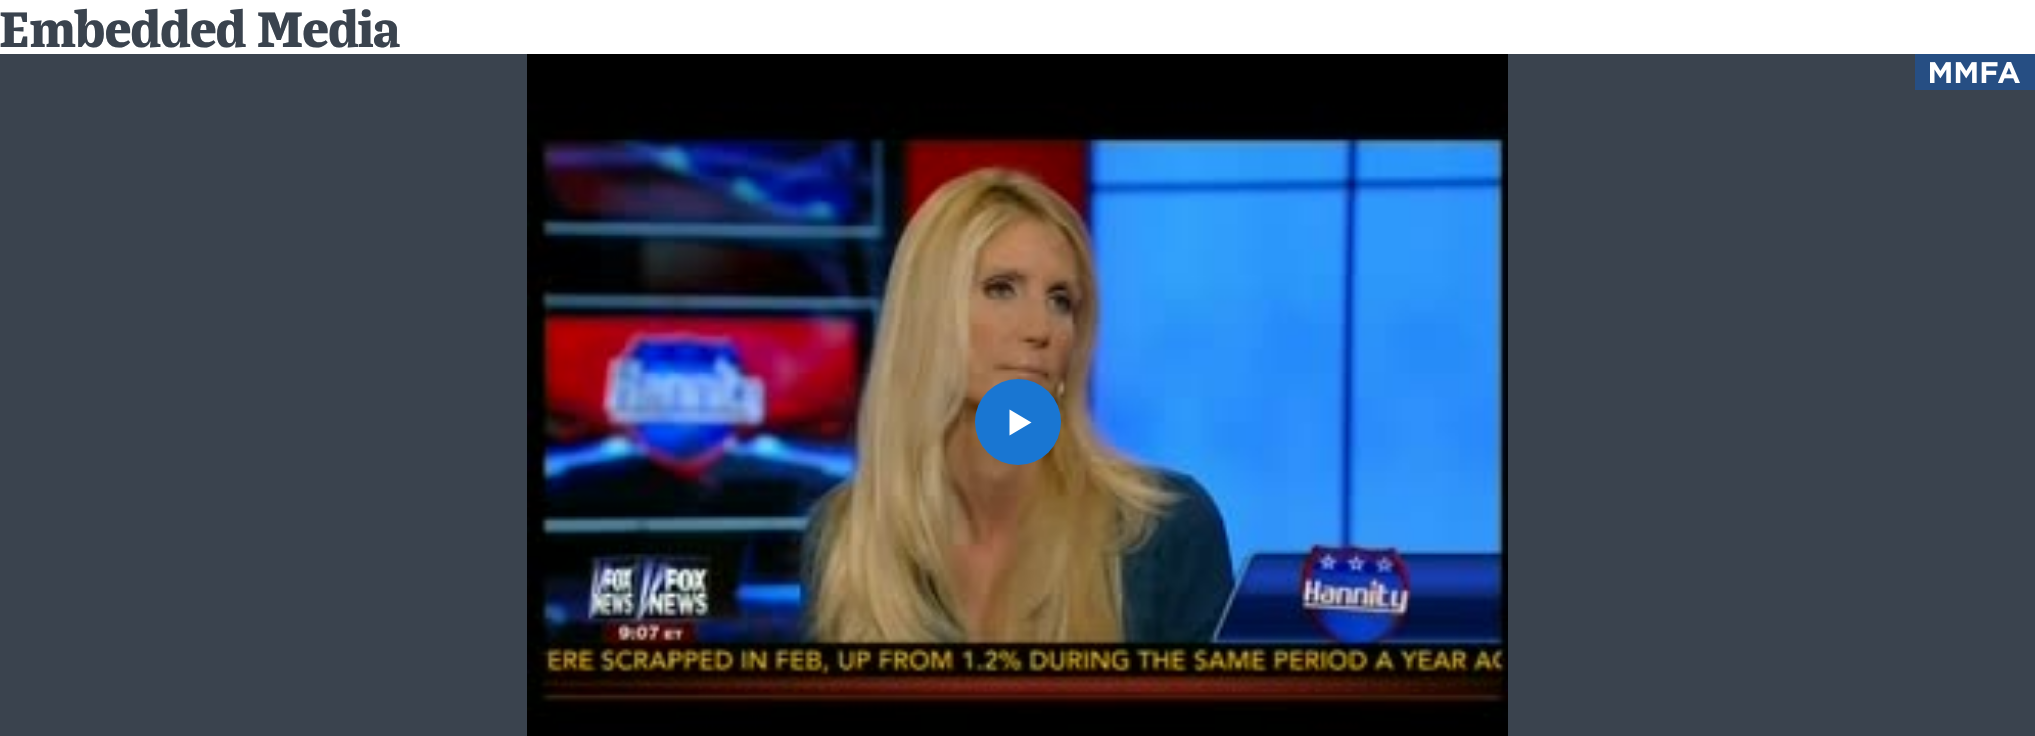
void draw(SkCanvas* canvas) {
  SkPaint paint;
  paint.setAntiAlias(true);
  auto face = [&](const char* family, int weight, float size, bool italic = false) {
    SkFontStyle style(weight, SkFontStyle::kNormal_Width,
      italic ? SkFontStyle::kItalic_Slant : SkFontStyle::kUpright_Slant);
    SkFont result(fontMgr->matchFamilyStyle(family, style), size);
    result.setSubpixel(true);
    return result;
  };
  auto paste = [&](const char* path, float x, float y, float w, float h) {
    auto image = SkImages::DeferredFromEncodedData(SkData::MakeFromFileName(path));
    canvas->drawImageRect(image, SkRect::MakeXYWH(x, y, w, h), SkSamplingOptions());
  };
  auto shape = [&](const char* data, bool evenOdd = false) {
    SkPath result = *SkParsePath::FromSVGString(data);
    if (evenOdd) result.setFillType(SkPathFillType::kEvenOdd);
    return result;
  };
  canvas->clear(0xffffffff);
  paint.setColor(0xff3a434e);
  canvas->drawRect(SkRect::MakeXYWH(0, 54, 2035, 682), paint);
  paste("img/1.png", 527, 54, 981, 682);
  paste("img/2.png", 1915, 54, 120, 36);
  paint.setColor(0xff1976d2);
  canvas->drawCircle(1018, 422, 43, paint);
  paint.setColor(0xffffffff);
  canvas->drawPath(shape("M1009.5 409.5L1031.5 422.5L1009.5 435.5Z", true), paint);
  auto f0 = face("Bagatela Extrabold", 800, 54);
  paint.setColor(0xff3a434e);
  canvas->drawString("Embedded Media", 0, 47, f0, paint);
}
